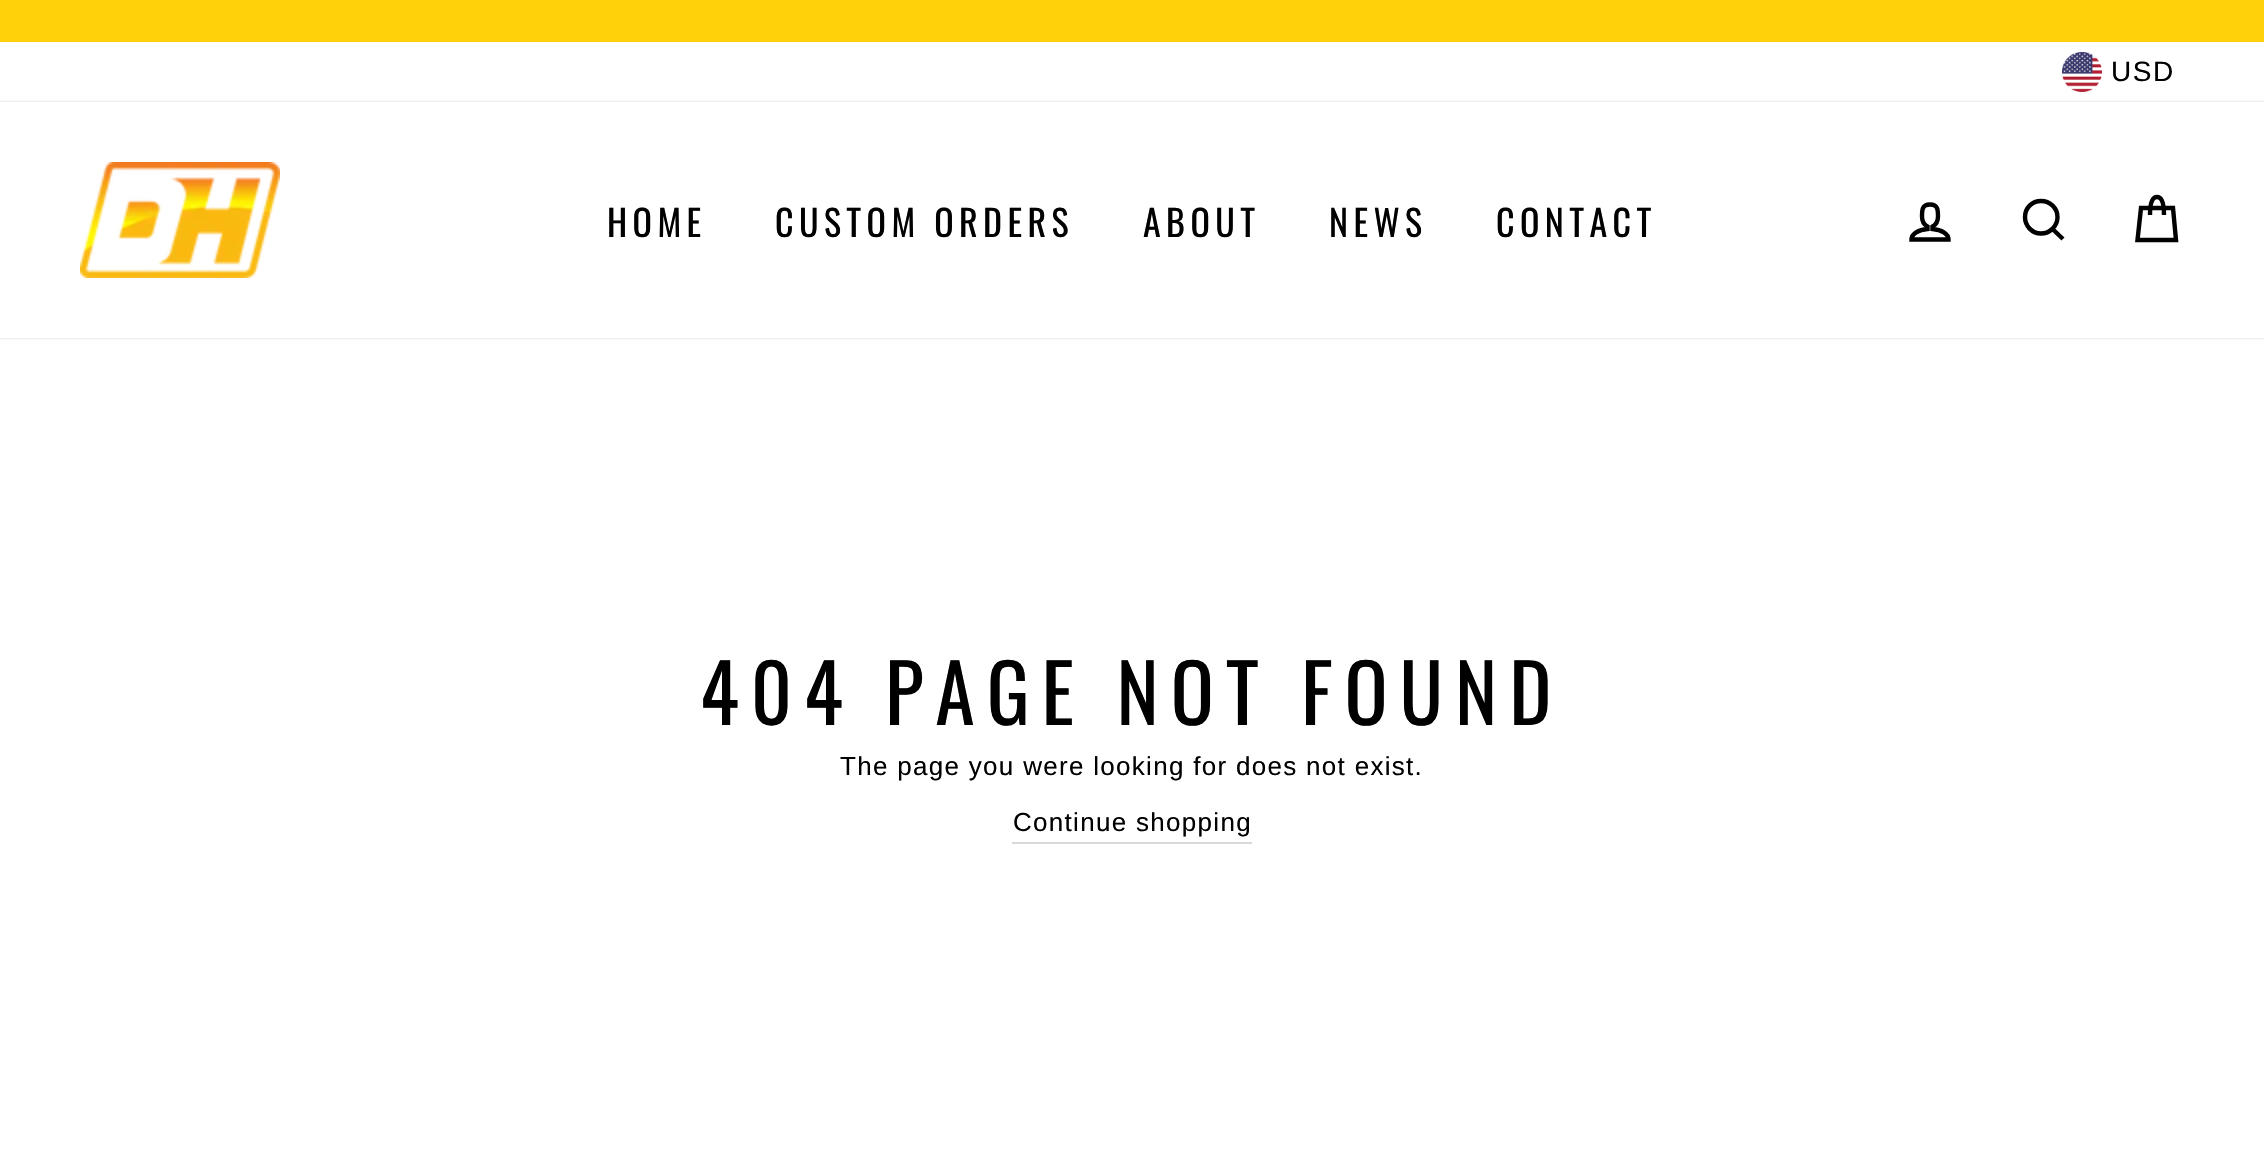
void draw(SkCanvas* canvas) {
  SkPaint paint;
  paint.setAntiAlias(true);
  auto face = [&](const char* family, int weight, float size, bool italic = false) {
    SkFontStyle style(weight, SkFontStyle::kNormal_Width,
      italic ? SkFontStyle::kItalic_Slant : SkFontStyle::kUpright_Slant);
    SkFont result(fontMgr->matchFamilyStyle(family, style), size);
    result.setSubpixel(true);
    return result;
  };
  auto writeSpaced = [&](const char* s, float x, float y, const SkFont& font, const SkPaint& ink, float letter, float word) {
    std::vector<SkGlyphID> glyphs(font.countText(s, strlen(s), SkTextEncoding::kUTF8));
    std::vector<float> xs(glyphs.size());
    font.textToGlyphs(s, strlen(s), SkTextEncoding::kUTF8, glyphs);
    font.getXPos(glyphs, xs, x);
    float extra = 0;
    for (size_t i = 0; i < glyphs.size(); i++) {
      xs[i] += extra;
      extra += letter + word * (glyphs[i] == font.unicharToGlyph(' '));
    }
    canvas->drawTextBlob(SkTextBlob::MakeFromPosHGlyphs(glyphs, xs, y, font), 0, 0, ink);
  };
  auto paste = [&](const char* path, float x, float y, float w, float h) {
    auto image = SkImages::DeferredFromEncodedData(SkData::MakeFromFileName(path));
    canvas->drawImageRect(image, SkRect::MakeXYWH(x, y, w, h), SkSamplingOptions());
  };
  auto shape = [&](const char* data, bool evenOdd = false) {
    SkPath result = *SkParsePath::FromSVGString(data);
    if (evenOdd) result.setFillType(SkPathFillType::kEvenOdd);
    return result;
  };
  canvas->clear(0xffffffff);
  paint.setColor(0xfffed10a);
  canvas->drawRect(SkRect::MakeXYWH(0, 0, 2264, 42), paint);
  paste("img/1.png", 2062, 52, 40, 40);
  canvas->save();
  canvas->clipPath(shape("M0 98H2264V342H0ZM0 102H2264V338H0Z", true), true);
  paint.setColor(0x33000000);
  paint.setMaskFilter(SkMaskFilter::MakeBlur(kNormal_SkBlurStyle, 1));
  canvas->drawRect(SkRect::MakeXYWH(0, 102, 2264, 236), paint);
  paint.setMaskFilter(nullptr);
  canvas->restore();
  paste("img/2.png", 80, 162, 200, 116);
  paint.setStroke(true);
  paint.setStrokeWidth(4.4f);
  paint.setColor(0xff000000);
  canvas->drawPath(shape("M1932.5 229V226.5C1935.5 225 1938 221 1938 216.5C1938 210 1938 204.5 1930 204.5C1922 204.5 1922 210 1922 216.5C1922 221 1924.5 225 1927.5 226.5V229C1918.5 229.5 1911.5 234 1911.5 239.5H1948.5C1948.5 234 1941.5 229.5 1932.5 229Z"), paint);
  canvas->drawPath(shape("M2057.5 217C2057.5 226 2050 233.5 2041 233.5C2032 233.5 2025 226 2025 217C2025 208 2032 201 2041 201C2050 201 2057.5 208 2057.5 217ZM2063 239L2052.5 229"), paint);
  canvas->drawPath(shape("M2150 215C2150 201 2153 197 2157 197C2161 197 2164 201 2164 215M2141 208H2173L2176 240H2137.5Z"), paint);
  paint.setStroke(false);
  paint.setColor(0xffd9d9d9);
  canvas->drawRect(SkRect::MakeXYWH(1012, 842, 240, 2), paint);
  auto f0 = face("Arimo", 400, 28);
  paint.setColor(0xff000000);
  writeSpaced("USD", 2111, 81, f0, paint, 1.5f, 0);
  auto f1 = face("Oswald", 400, 36);
  {
    const struct { const char* s; float x, y; } items[] = {
      {"HOME", 607, 237},
      {"CUSTOM ORDERS", 775, 237},
      {"ABOUT", 1143, 237},
      {"NEWS", 1329, 237},
      {"CONTACT", 1496, 237},
    };
    for (auto [s, x, y] : items) {
      writeSpaced(s, x, y, f1, paint, 5.4f, 0);
    }
  }
  auto f2 = face("Oswald", 400, 80);
  writeSpaced("404 PAGE NOT FOUND", 700, 725, f2, paint, 12, 0);
  auto f3 = face("Arimo", 400, 26);
  writeSpaced("The page you were looking for does not exist.", 840, 775, f3, paint, 1.3f, 0);
  writeSpaced("Continue shopping", 1013, 831, f3, paint, 1.3f, 0);
}
